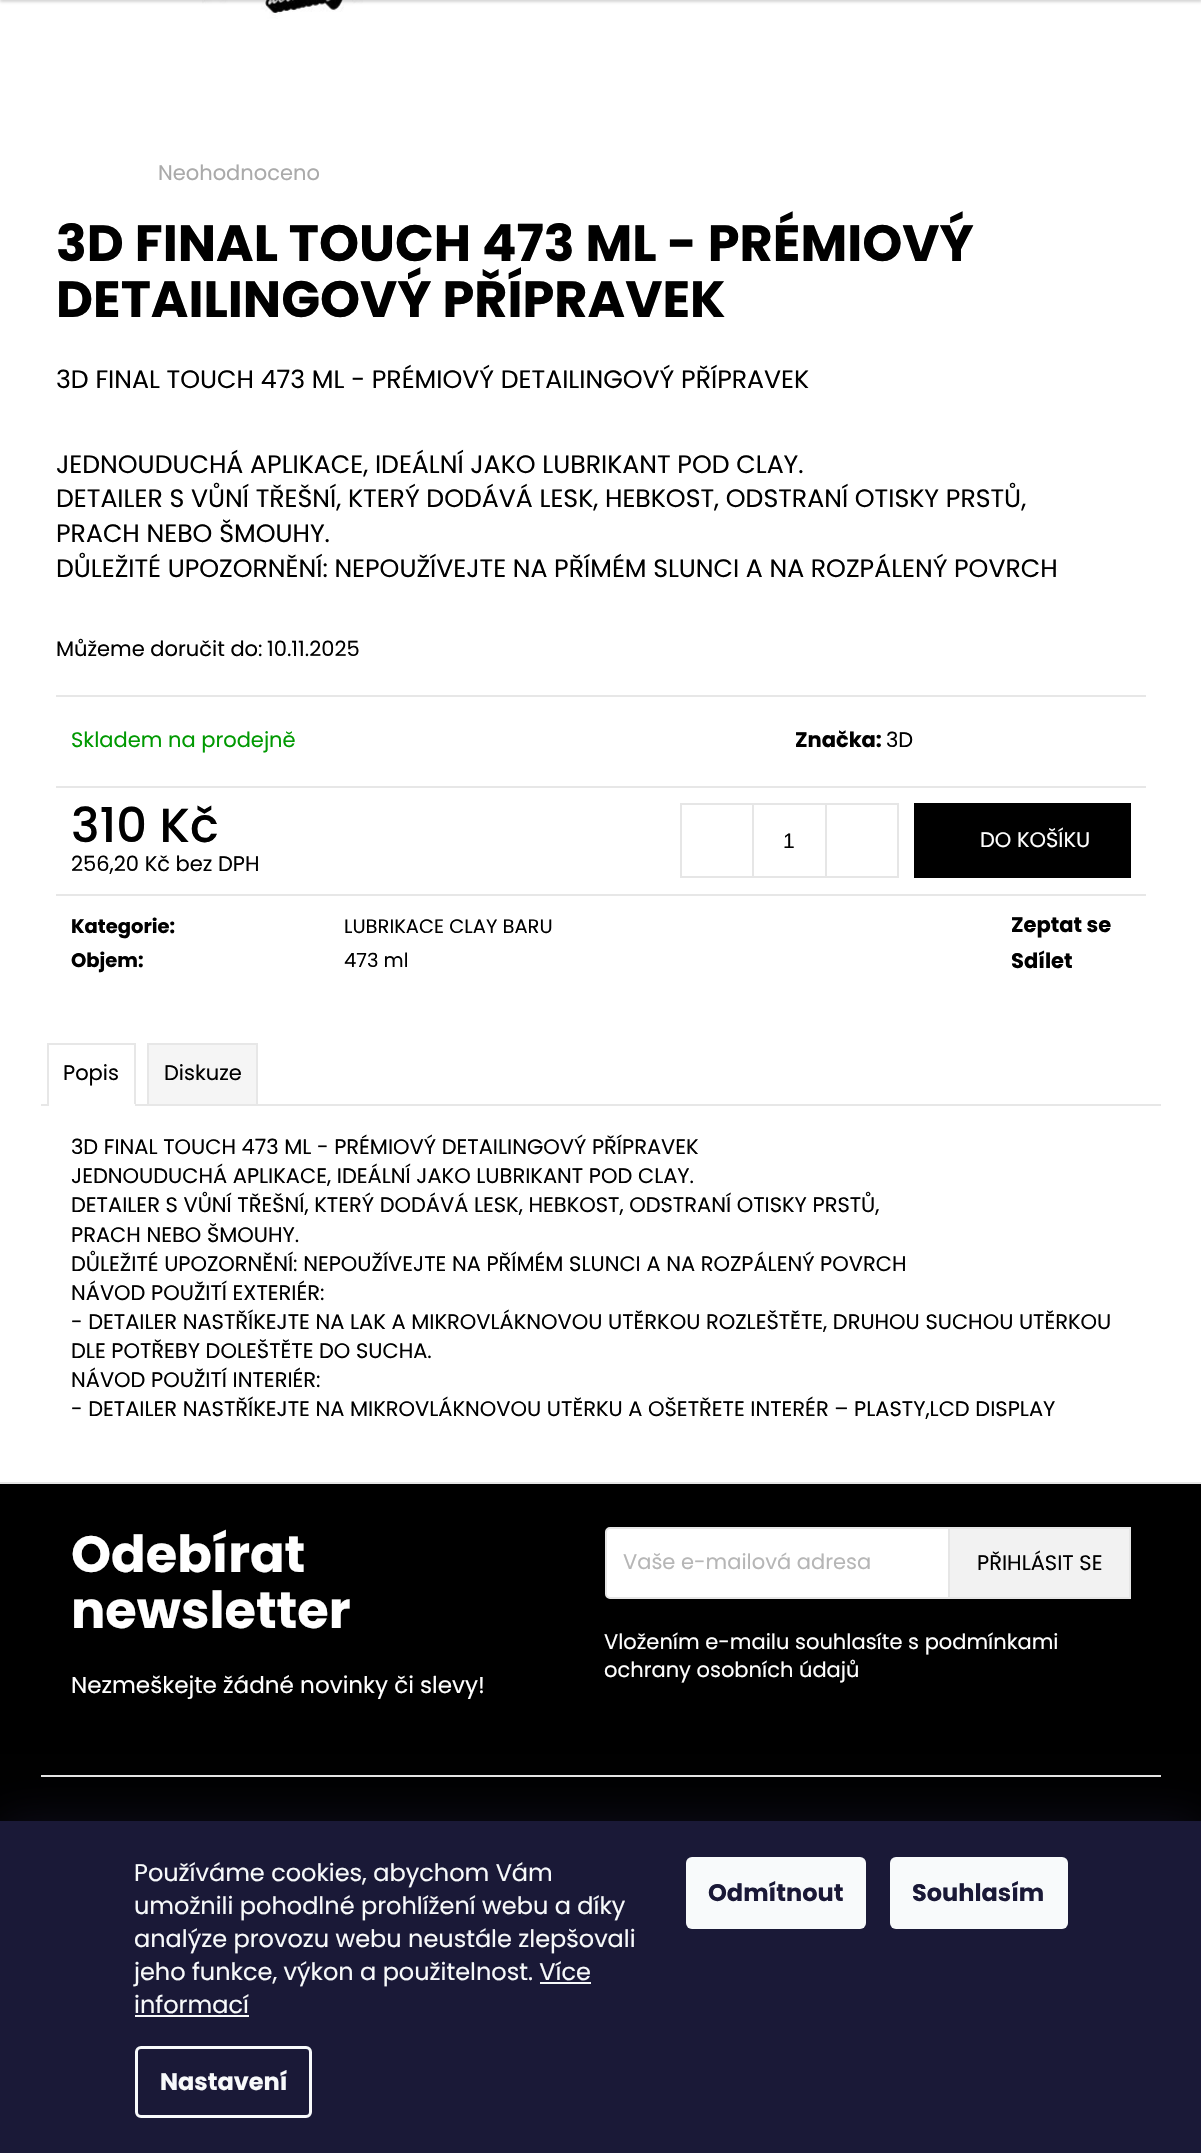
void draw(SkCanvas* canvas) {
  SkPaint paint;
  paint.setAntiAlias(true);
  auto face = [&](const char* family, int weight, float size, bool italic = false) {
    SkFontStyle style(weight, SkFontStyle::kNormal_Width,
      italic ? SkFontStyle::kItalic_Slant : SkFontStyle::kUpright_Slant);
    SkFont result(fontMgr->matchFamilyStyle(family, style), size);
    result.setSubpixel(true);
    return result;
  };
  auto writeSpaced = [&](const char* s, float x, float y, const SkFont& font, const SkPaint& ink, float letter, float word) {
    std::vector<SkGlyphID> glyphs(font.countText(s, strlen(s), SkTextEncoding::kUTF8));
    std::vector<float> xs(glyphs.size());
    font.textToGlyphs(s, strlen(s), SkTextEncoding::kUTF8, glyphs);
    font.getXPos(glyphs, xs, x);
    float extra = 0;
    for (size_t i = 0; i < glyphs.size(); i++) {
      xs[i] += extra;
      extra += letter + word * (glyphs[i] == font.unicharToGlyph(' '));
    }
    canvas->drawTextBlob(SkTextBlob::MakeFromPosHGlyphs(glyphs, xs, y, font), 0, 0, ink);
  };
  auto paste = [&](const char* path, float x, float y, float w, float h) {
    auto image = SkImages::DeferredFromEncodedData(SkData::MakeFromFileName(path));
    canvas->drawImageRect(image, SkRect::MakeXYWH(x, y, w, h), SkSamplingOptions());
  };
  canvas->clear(0xffffffff);
  paste("img/1.png", 202, 0, 161, 19);
  paint.setColor(0x29000000);
  paint.setMaskFilter(SkMaskFilter::MakeBlur(kNormal_SkBlurStyle, 1.5f));
  canvas->drawRect(SkRect::MakeXYWH(0, -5, 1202, 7), paint);
  paint.setMaskFilter(nullptr);
  {
    const struct { float x, y, w, h; SkColor color; } items[] = {
      {56, 695, 1090, 2, 0xffe7e7e7},
      {56, 786, 1090, 2, 0xffe7e7e7},
      {56, 894, 1090, 2, 0xffe7e7e7},
    };
    for (auto [x, y, w, h, color] : items) {
      paint.setColor(color);
      canvas->drawRect(SkRect::MakeXYWH(x, y, w, h), paint);
    }
  }
  paint.setStroke(true);
  paint.setStrokeWidth(2);
  paint.setColor(0xffe6e6e6);
  canvas->drawRect(SkRect::MakeXYWH(681, 804, 217, 73), paint);
  paint.setStroke(false);
  {
    const struct { float x, y, w, h; SkColor color; } items[] = {
      {752, 804, 2, 72, 0xffe6e6e6},
      {825, 804, 2, 72, 0xffe6e6e6},
      {914, 803, 217, 75, 0xff000000},
      {41, 1104, 1120, 2, 0xffe7e7e7},
      {47, 1043, 88, 2, 0xffe7e7e7},
      {134, 1043, 2, 63, 0xffe7e7e7},
      {47, 1104, 88, 2, 0xffffffff},
      {47, 1043, 2, 63, 0xffe7e7e7},
    };
    for (auto [x, y, w, h, color] : items) {
      paint.setColor(color);
      canvas->drawRect(SkRect::MakeXYWH(x, y, w, h), paint);
    }
  }
  paint.setColor(0xfff5f5f5);
  canvas->drawRect(SkRect::MakeXYWH(148, 1044, 109, 61), paint);
  paint.setStroke(true);
  paint.setColor(0xffe7e7e7);
  canvas->drawRect(SkRect::MakeXYWH(148, 1044, 109, 61), paint);
  paint.setStroke(false);
  {
    const struct { float x, y, w, h; SkColor color; } items[] = {
      {0, 1484, 1201, 337, 0xff000000},
      {0, 1482, 1201, 2, 0xffe6e6e6},
      {41, 1775, 1120, 2, 0xffe6e6e6},
    };
    for (auto [x, y, w, h, color] : items) {
      paint.setColor(color);
      canvas->drawRect(SkRect::MakeXYWH(x, y, w, h), paint);
    }
  }
  paint.setColor(0xffffffff);
  canvas->drawRoundRect(SkRect::MakeXYWH(606, 1528, 524, 70), 4, 4, paint);
  paint.setStroke(true);
  paint.setColor(0xffe6e6e6);
  canvas->drawRoundRect(SkRect::MakeXYWH(606, 1528, 524, 70), 4, 4, paint);
  paint.setStroke(false);
  paint.setColor(0xfff2f2f2);
  canvas->drawRect(SkRect::MakeXYWH(949, 1528, 181, 70), paint);
  paint.setStroke(true);
  paint.setColor(0xffe6e6e6);
  canvas->drawRect(SkRect::MakeXYWH(949, 1528, 181, 70), paint);
  paint.setStroke(false);
  paint.setColor(0x801b1939);
  paint.setMaskFilter(SkMaskFilter::MakeBlur(kNormal_SkBlurStyle, 22.5f));
  canvas->drawRect(SkRect::MakeXYWH(0, 1821, 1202, 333), paint);
  paint.setMaskFilter(nullptr);
  {
    const struct { float x, y, w, h; SkColor color; } items[] = {
      {0, 1821, 1201, 332, 0xff1a1937},
      {540, 1982, 51, 2, 0xfff8fafb},
      {135, 2015, 114, 2, 0xfff8fafb},
    };
    for (auto [x, y, w, h, color] : items) {
      paint.setColor(color);
      canvas->drawRect(SkRect::MakeXYWH(x, y, w, h), paint);
    }
  }
  paint.setStroke(true);
  paint.setStrokeWidth(3);
  canvas->drawRoundRect(SkRect::MakeXYWH(136.5f, 2047.5f, 174, 69), 4.5f, 4.5f, paint);
  paint.setStroke(false);
  canvas->drawRoundRect(SkRect::MakeXYWH(686, 1857, 180, 72), 6, 6, paint);
  canvas->drawRoundRect(SkRect::MakeXYWH(890, 1857, 178, 72), 6, 6, paint);
  auto f0 = face("Poppins", 400, 21);
  paint.setColor(0xffaaaaaa);
  canvas->drawString("Neohodnoceno", 158, 180, f0, paint);
  auto f1 = face("Poppins", 700, 51);
  paint.setColor(0xff000000);
  canvas->drawString("3D FINAL TOUCH 473 ML - PRÉMIOVÝ", 56, 261, f1, paint);
  canvas->drawString("DETAILINGOVÝ PŘÍPRAVEK", 56, 317, f1, paint);
  auto f2 = face("Poppins", 400, 25.2f);
  {
    const struct { const char* s; float x, y; } items[] = {
      {"3D FINAL TOUCH 473 ML - PRÉMIOVÝ DETAILINGOVÝ PŘÍPRAVEK", 56, 388},
      {"JEDNOUDUCHÁ APLIKACE, IDEÁLNÍ JAKO LUBRIKANT POD CLAY.", 56, 473},
      {"DETAILER S VŮNÍ TŘEŠNÍ, KTERÝ DODÁVÁ LESK, HEBKOST, ODSTRANÍ OTISKY PRSTŮ,", 56, 507},
      {"PRACH NEBO ŠMOUHY.", 56, 542},
    };
    for (auto [s, x, y] : items) {
      canvas->drawString(s, x, y, f2, paint);
    }
  }
  writeSpaced("DŮLEŽITÉ UPOZORNĚNÍ: NEPOUŽÍVEJTE NA PŘÍMÉM SLUNCI A NA ROZPÁLENÝ POVRCH", 56, 577, f2, paint, 0, -0.1f);
  canvas->drawString("Můžeme doručit do:", 56, 656, f0, paint);
  canvas->drawString("10.11.2025", 267, 656, f0, paint);
  paint.setColor(0xff009901);
  canvas->drawString("Skladem na prodejně", 71, 747, f0, paint);
  auto f3 = face("Poppins", 700, 21);
  paint.setColor(0xff000000);
  canvas->drawString("Značka:", 795, 747, f3, paint);
  canvas->drawString("3D", 886, 747, f0, paint);
  auto f4 = face("Poppins", 500, 48);
  canvas->drawString("310 Kč", 71, 842, f4, paint);
  canvas->drawString("256,20 Kč bez DPH", 71, 871, f0, paint);
  auto f5 = face("Liberation Sans", 400, 21);
  canvas->drawString("1", 783, 848, f5, paint);
  paint.setColor(0xffffffff);
  canvas->drawString("DO KOŠÍKU", 980, 847, f0, paint);
  auto f6 = face("Poppins", 700, 19.5f);
  paint.setColor(0xff000000);
  canvas->drawString("Kategorie:", 71, 933, f6, paint);
  auto f7 = face("Poppins", 400, 19.5f);
  canvas->drawString("LUBRIKACE CLAY BARU", 344, 933, f7, paint);
  canvas->drawString("Objem:", 71, 967, f6, paint);
  canvas->drawString("473 ml", 344, 967, f7, paint);
  canvas->drawString("Zeptat se", 1011, 932, f3, paint);
  canvas->drawString("Sdílet", 1011, 968, f3, paint);
  {
    const struct { const char* s; float x, y; } items[] = {
      {"Popis", 63, 1080},
      {"Diskuze", 164, 1080},
      {"3D FINAL TOUCH 473 ML - PRÉMIOVÝ DETAILINGOVÝ PŘÍPRAVEK", 71, 1154},
      {"JEDNOUDUCHÁ APLIKACE, IDEÁLNÍ JAKO LUBRIKANT POD CLAY.", 71, 1183},
      {"DETAILER S VŮNÍ TŘEŠNÍ, KTERÝ DODÁVÁ LESK, HEBKOST, ODSTRANÍ OTISKY PRSTŮ,", 71, 1212},
      {"PRACH NEBO ŠMOUHY.", 71, 1242},
      {"DŮLEŽITÉ UPOZORNĚNÍ: NEPOUŽÍVEJTE NA PŘÍMÉM SLUNCI A NA ROZPÁLENÝ POVRCH", 71, 1271},
      {"NÁVOD POUŽITÍ EXTERIÉR:", 71, 1300},
      {"- DETAILER NASTŘÍKEJTE NA LAK A MIKROVLÁKNOVOU UTĚRKOU ROZLEŠTĚTE, DRUHOU SUCHOU UTĚRKOU", 71, 1329},
      {"DLE POTŘEBY DOLEŠTĚTE DO SUCHA.", 71, 1358},
      {"NÁVOD POUŽITÍ INTERIÉR:", 71, 1387},
      {"- DETAILER NASTŘÍKEJTE NA MIKROVLÁKNOVOU UTĚRKU A OŠETŘETE INTERÉR – PLASTY,LCD DISPLAY", 71, 1416},
    };
    for (auto [s, x, y] : items) {
      canvas->drawString(s, x, y, f0, paint);
    }
  }
  paint.setColor(0xffffffff);
  canvas->drawString("Odebírat", 71, 1572, f1, paint);
  canvas->drawString("newsletter", 71, 1628, f1, paint);
  auto f8 = face("Poppins", 400, 23.1f);
  canvas->drawString("Nezmeškejte žádné novinky či slevy!", 71, 1693, f8, paint);
  paint.setColor(0xffb6b6b6);
  canvas->drawString("Vaše e-mailová adresa", 623, 1569, f0, paint);
  paint.setColor(0xff000000);
  canvas->drawString("PŘIHLÁSIT SE", 977, 1570, f0, paint);
  paint.setColor(0xffffffff);
  canvas->drawString("Vložením e-mailu souhlasíte s podmínkami", 604, 1649, f0, paint);
  canvas->drawString("ochrany osobních údajů", 604, 1677, f0, paint);
  auto f9 = face("Poppins", 400, 24);
  paint.setColor(0xfff8fafb);
  {
    const struct { const char* s; float x, y; } items[] = {
      {"Používáme cookies, abychom Vám", 134, 1881},
      {"umožnili pohodlné prohlížení webu a díky", 134, 1914},
      {"analýze provozu webu neustále zlepšovali", 134, 1947},
      {"jeho funkce, výkon a použitelnost. Více", 134, 1980},
      {"informací", 134, 2013},
    };
    for (auto [s, x, y] : items) {
      canvas->drawString(s, x, y, f9, paint);
    }
  }
  auto f10 = face("Poppins", 700, 24);
  canvas->drawString("Nastavení", 160, 2090, f10, paint);
  paint.setColor(0xff1a1937);
  canvas->drawString("Odmítnout", 708, 1901, f10, paint);
  canvas->drawString("Souhlasím", 912, 1901, f10, paint);
}
